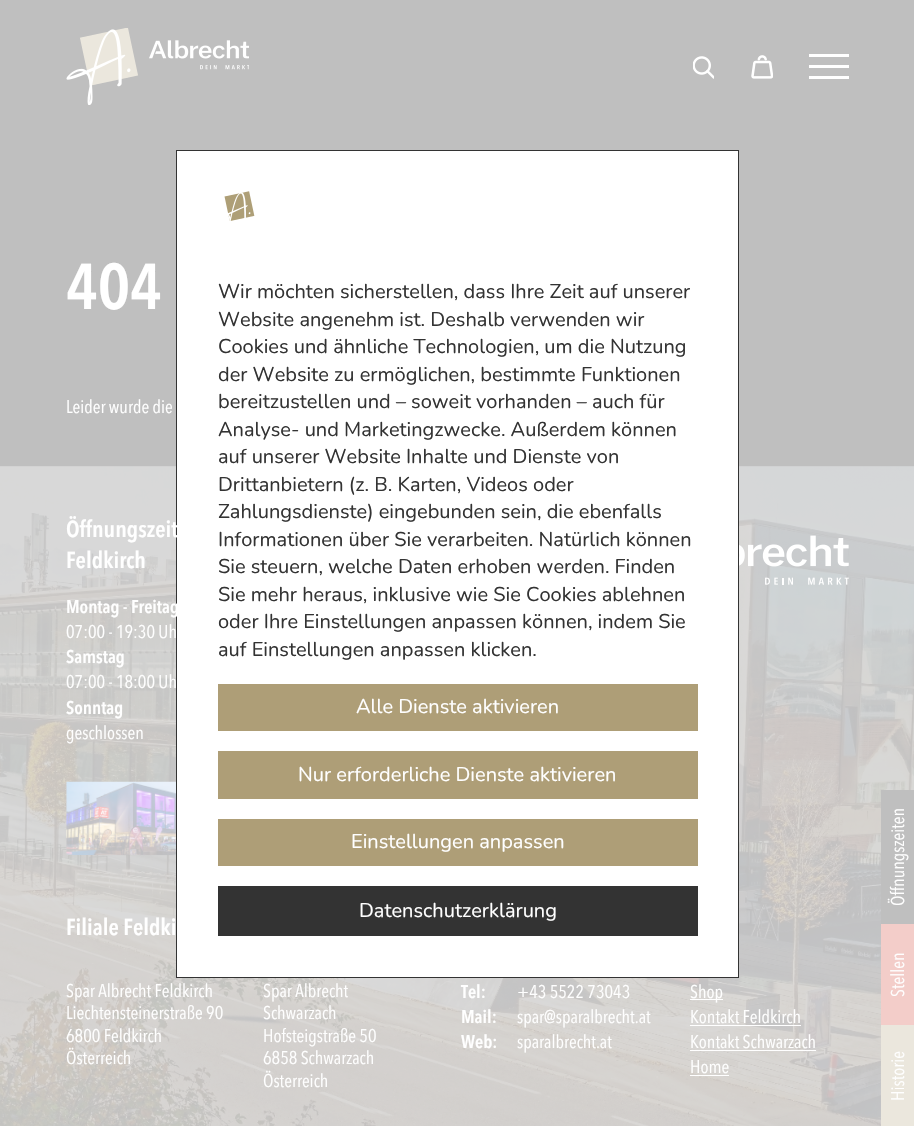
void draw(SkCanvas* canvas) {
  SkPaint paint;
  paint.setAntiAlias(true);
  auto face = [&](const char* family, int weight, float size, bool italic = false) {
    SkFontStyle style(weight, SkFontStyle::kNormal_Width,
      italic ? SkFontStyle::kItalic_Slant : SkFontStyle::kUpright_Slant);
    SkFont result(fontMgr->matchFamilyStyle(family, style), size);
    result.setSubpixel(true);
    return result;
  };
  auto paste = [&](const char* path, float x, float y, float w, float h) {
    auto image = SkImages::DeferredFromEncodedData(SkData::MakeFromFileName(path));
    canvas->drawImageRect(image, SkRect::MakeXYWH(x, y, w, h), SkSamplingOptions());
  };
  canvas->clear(0xffbfbfbf);
  paste("img/1.png", 66, 28, 183, 77);
  paste("img/2.png", 693, 56, 21, 23);
  paste("img/3.png", 751, 55, 22, 24);
  {
    const struct { float x, y, w, h; SkColor color; } items[] = {
      {809, 54, 40, 3, 0xffffffff},
      {809, 65, 40, 3, 0xffffffff},
      {809, 76, 40, 3, 0xffffffff},
    };
    for (auto [x, y, w, h, color] : items) {
      paint.setColor(color);
      canvas->drawRect(SkRect::MakeXYWH(x, y, w, h), paint);
    }
  }
  paste("img/5.png", 0, 466, 914, 660);
  canvas->drawRect(SkRect::MakeXYWH(176.5f, 150.5f, 562, 827), paint);
  paint.setStroke(true);
  paint.setStrokeWidth(1);
  paint.setColor(0xff333333);
  canvas->drawRect(SkRect::MakeXYWH(176.5f, 150.5f, 562, 827), paint);
  paste("img/4.png", 224, 191, 31, 30);
  paint.setStroke(false);
  {
    const struct { float x, y, w, h; SkColor color; } items[] = {
      {218, 684, 480, 47, 0xffae9e77},
      {218, 751, 480, 48, 0xffae9e77},
      {218, 819, 480, 47, 0xffae9e77},
      {218, 886, 480, 50, 0xff333333},
    };
    for (auto [x, y, w, h, color] : items) {
      paint.setColor(color);
      canvas->drawRect(SkRect::MakeXYWH(x, y, w, h), paint);
    }
  }
  paste("img/6.png", 66, 781, 110, 75);
  paste("img/7.png", 739, 535, 110, 50);
  {
    const struct { float x, y, w, h; SkColor color; } items[] = {
      {690, 999, 33, 1, 0xffffffff},
      {690, 1025, 111, 1, 0xffffffff},
      {690, 1050, 126, 1, 0xffffffff},
      {690, 1075, 39, 1, 0xffffffff},
      {881, 790, 33, 134, 0xffbfbfbf},
      {881, 924, 33, 101, 0xfff3cdc9},
      {881, 1025, 33, 101, 0xffebe7dd},
    };
    for (auto [x, y, w, h, color] : items) {
      paint.setColor(color);
      canvas->drawRect(SkRect::MakeXYWH(x, y, w, h), paint);
    }
  }
  auto f0 = face("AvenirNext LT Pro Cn", 700, 64);
  paint.setColor(0xffffffff);
  canvas->drawString("404", 66, 309, f0, paint);
  auto f1 = face("AvenirNext LT Pro Cn", 400, 18.25f);
  canvas->drawString("Leider wurde die", 66, 413, f1, paint);
  auto f2 = face("Nunito", 400, 20);
  paint.setColor(0xff333333);
  {
    const struct { const char* s; float x, y; } items[] = {
      {"Wir möchten sicherstellen, dass Ihre Zeit auf unserer", 218, 298},
      {"Website angenehm ist. Deshalb verwenden wir", 218, 326},
      {"Cookies und ähnliche Technologien, um die Nutzung", 218, 353},
      {"der Website zu ermöglichen, bestimmte Funktionen", 218, 381},
      {"bereitzustellen und – soweit vorhanden – auch für", 218, 408},
      {"Analyse- und Marketingzwecke. Außerdem können", 218, 436},
      {"auf unserer Website Inhalte und Dienste von", 218, 463},
      {"Drittanbietern (z. B. Karten, Videos oder", 218, 491},
      {"Zahlungsdienste) eingebunden sein, die ebenfalls", 218, 518},
      {"Informationen über Sie verarbeiten. Natürlich können", 218, 546},
      {"Sie steuern, welche Daten erhoben werden. Finden", 218, 573},
      {"Sie mehr heraus, inklusive wie Sie Cookies ablehnen", 218, 601},
      {"oder Ihre Einstellungen anpassen können, indem Sie", 218, 628},
      {"auf Einstellungen anpassen klicken.", 218, 656},
    };
    for (auto [s, x, y] : items) {
      canvas->drawString(s, x, y, f2, paint);
    }
  }
  paint.setColor(0xffffffff);
  {
    const struct { const char* s; float x, y; } items[] = {
      {"Alle Dienste aktivieren", 356, 713},
      {"Nur erforderliche Dienste aktivieren", 298, 781},
      {"Einstellungen anpassen", 351, 848},
      {"Datenschutzerklärung", 359, 917},
    };
    for (auto [s, x, y] : items) {
      canvas->drawString(s, x, y, f2, paint);
    }
  }
  auto f3 = face("AvenirNext LT Pro Cn", 700, 23);
  canvas->drawString("Öffnungszeit", 66, 537, f3, paint);
  canvas->drawString("Feldkirch", 66, 568, f3, paint);
  auto f4 = face("AvenirNext LT Pro Cn", 700, 18.25f);
  canvas->drawString("Montag - Freitag", 66, 613, f4, paint);
  canvas->drawString("07:00 - 19:30 Uh", 66, 638, f1, paint);
  canvas->drawString("Samstag", 66, 663, f4, paint);
  canvas->drawString("07:00 - 18:00 Uh", 66, 688, f1, paint);
  canvas->drawString("Sonntag", 66, 714, f4, paint);
  canvas->drawString("geschlossen", 66, 739, f1, paint);
  canvas->drawString("Filiale Feldki", 66, 935, f3, paint);
  {
    const struct { const char* s; float x, y; } items[] = {
      {"Spar Albrecht Feldkirch", 66, 997},
      {"Liechtensteinerstraße 90", 66, 1019},
      {"6800 Feldkirch", 66, 1042},
      {"Österreich", 66, 1064},
      {"Spar Albrecht", 263, 997},
      {"Schwarzach", 263, 1019},
      {"Hofsteigstraße 50", 263, 1042},
      {"6858 Schwarzach", 263, 1064},
      {"Österreich", 263, 1087},
    };
    for (auto [s, x, y] : items) {
      canvas->drawString(s, x, y, f1, paint);
    }
  }
  canvas->drawString("Tel:", 461, 998, f4, paint);
  canvas->drawString("+43 5522 73043", 517, 998, f1, paint);
  canvas->drawString("Mail:", 461, 1023, f4, paint);
  canvas->drawString("spar@sparalbrecht.at", 517, 1023, f1, paint);
  canvas->drawString("Web:", 461, 1048, f4, paint);
  {
    const struct { const char* s; float x, y; } items[] = {
      {"sparalbrecht.at", 517, 1048},
      {"Shop", 690, 998},
      {"Kontakt Feldkirch", 690, 1023},
      {"Kontakt Schwarzach", 690, 1048},
      {"Home", 690, 1073},
    };
    for (auto [s, x, y] : items) {
      canvas->drawString(s, x, y, f1, paint);
    }
  }
  canvas->save();
  canvas->rotate(-90, 904, 906);
  canvas->drawString("Öffnungszeiten", 904, 906, f1, paint);
  canvas->restore();
  canvas->save();
  canvas->rotate(-90, 904, 997);
  canvas->drawString("Stellen", 904, 997, f1, paint);
  canvas->restore();
  canvas->save();
  canvas->rotate(-90, 904, 1101);
  canvas->drawString("Historie", 904, 1101, f1, paint);
  canvas->restore();
}
